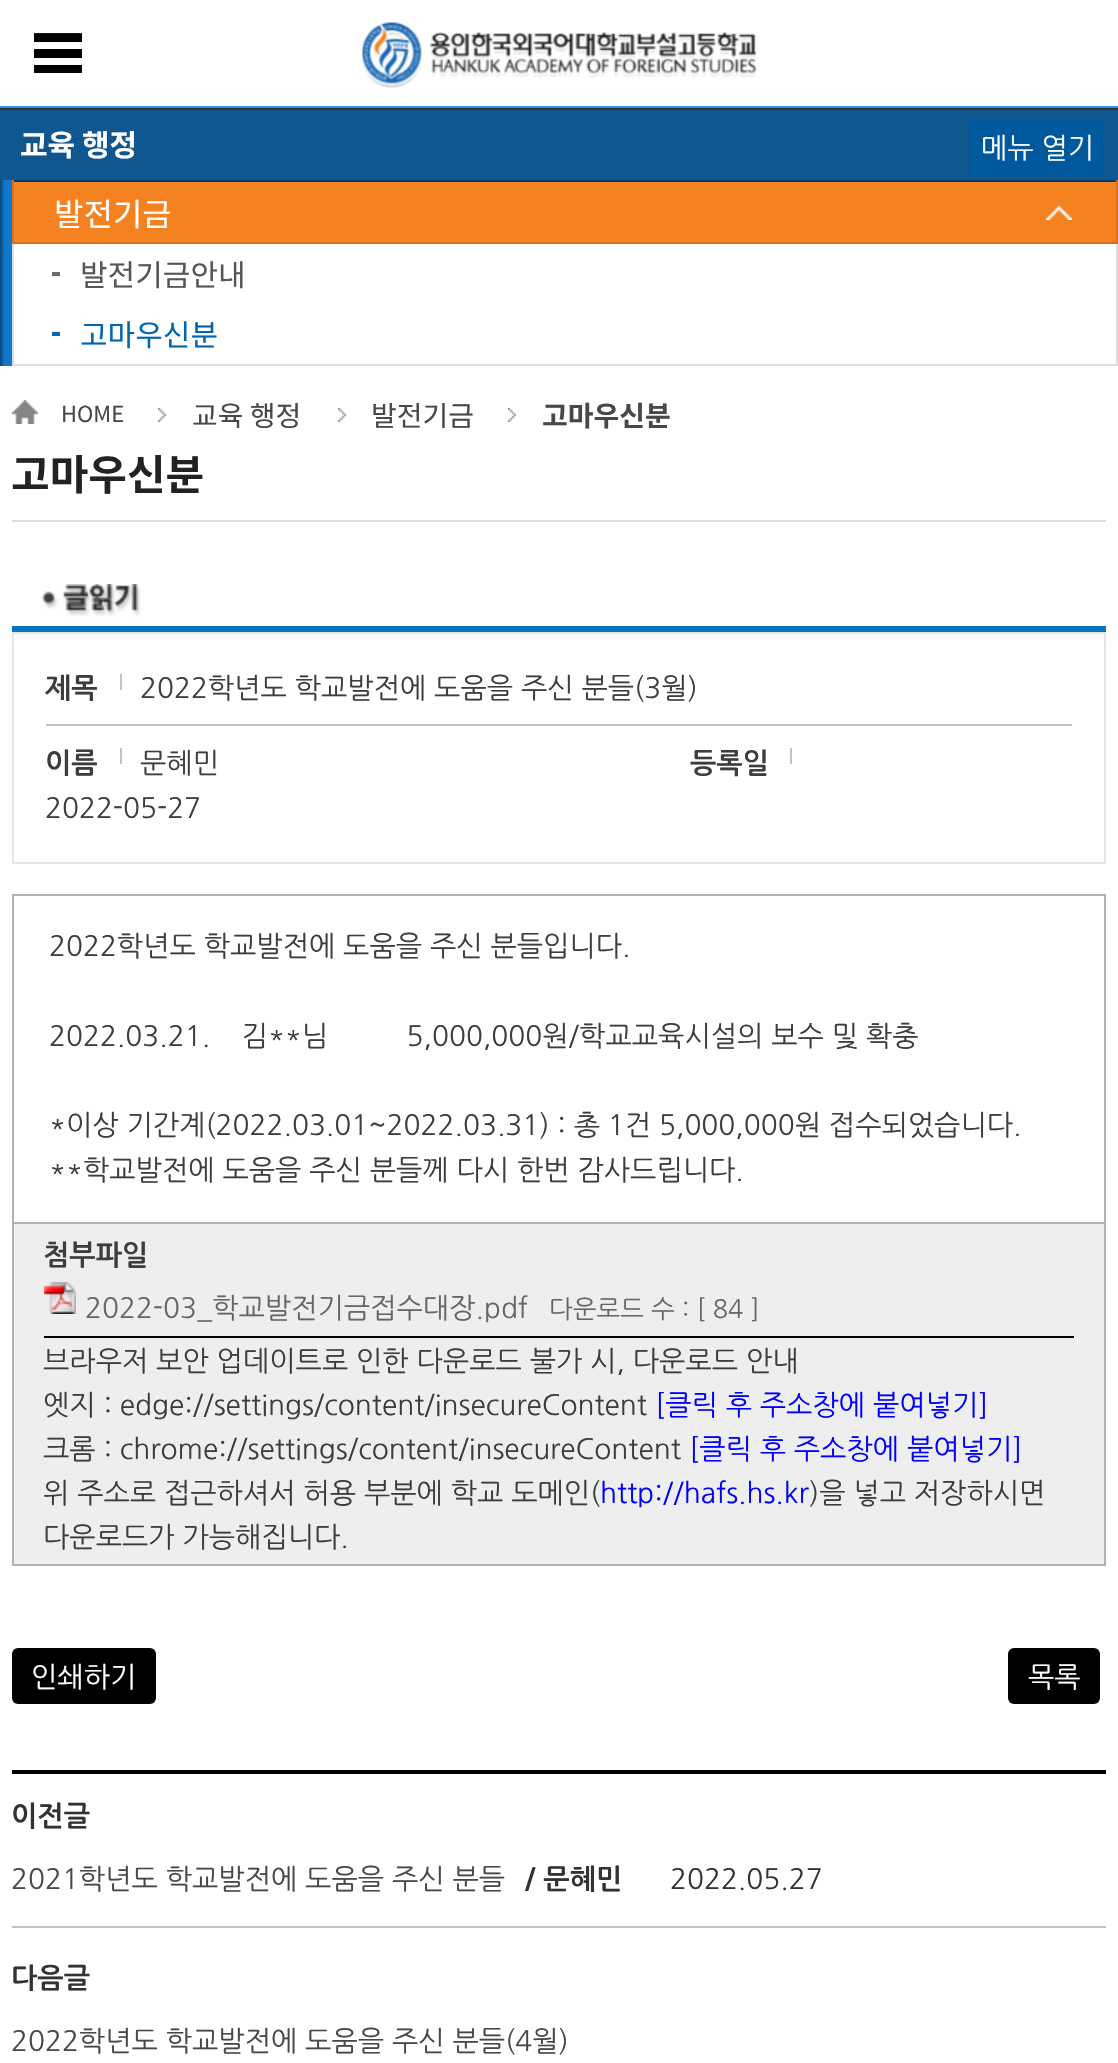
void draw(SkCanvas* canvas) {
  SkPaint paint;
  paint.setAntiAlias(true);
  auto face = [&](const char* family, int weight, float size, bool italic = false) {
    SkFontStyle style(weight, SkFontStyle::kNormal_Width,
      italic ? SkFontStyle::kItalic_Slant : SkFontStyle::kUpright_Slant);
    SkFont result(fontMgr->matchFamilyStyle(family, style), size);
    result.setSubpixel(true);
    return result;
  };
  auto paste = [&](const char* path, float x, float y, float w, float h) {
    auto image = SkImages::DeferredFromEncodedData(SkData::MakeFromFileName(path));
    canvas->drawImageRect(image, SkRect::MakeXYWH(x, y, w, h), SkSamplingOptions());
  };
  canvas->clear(0xffffffff);
  paint.setColor(0xff3294e0);
  canvas->drawRect(SkRect::MakeXYWH(0, 106, 1118, 2), paint);
  paint.setColor(0xff333333);
  canvas->drawRect(SkRect::MakeXYWH(0, 108, 1118, 2), paint);
  paste("img/1.png", 34, 33, 48, 40);
  paste("img/2.png", 361, 22, 396, 66);
  paint.setColor(0xff0f578e);
  canvas->drawRect(SkRect::MakeXYWH(0, 110, 1118, 70), paint);
  paste("img/3.png", 0, 180, 12, 186);
  paint.setColor(0xfff58220);
  canvas->drawRect(SkRect::MakeXYWH(14, 182, 1102, 60), paint);
  paste("img/4.png", 1046, 206, 26, 14);
  {
    const struct { float x, y, w, h; SkColor color; } items[] = {
      {12, 180, 1106, 2, 0xff003f70},
      {1116, 180, 2, 64, 0xffd6721c},
      {12, 242, 1106, 2, 0xffd6721c},
      {12, 180, 2, 64, 0xffd6721c},
      {1116, 244, 2, 122, 0xffdedede},
      {12, 364, 1106, 2, 0xffdedede},
      {12, 244, 2, 122, 0xffdedede},
      {52, 272, 8, 4, 0xff6a6a6a},
      {52, 332, 8, 4, 0xff0065b3},
      {970, 120, 134, 56, 0xff00589d},
      {12, 520, 1094, 2, 0xffdddddd},
    };
    for (auto [x, y, w, h, color] : items) {
      paint.setColor(color);
      canvas->drawRect(SkRect::MakeXYWH(x, y, w, h), paint);
    }
  }
  paste("img/5.png", 12, 400, 26, 24);
  paste("img/6.png", 158, 408, 8, 14);
  paste("img/6.png", 338, 408, 8, 14);
  paste("img/6.png", 508, 408, 8, 14);
  paste("img/7.png", 42, 584, 99, 33);
  paint.setColor(0xff0177c1);
  canvas->drawRect(SkRect::MakeXYWH(12, 626, 1094, 6), paint);
  paint.setStroke(true);
  paint.setStrokeWidth(2);
  paint.setColor(0xffe6e6e6);
  canvas->drawRect(SkRect::MakeXYWH(13, 633, 1092, 230), paint);
  paint.setStroke(false);
  {
    const struct { float x, y, w, h; SkColor color; } items[] = {
      {46, 724, 1026, 2, 0xffc3c3c3},
      {120, 674, 2, 16, 0xffc3c3c3},
      {120, 748, 2, 16, 0xffc3c3c3},
      {790, 748, 2, 16, 0xffc3c3c3},
    };
    for (auto [x, y, w, h, color] : items) {
      paint.setColor(color);
      canvas->drawRect(SkRect::MakeXYWH(x, y, w, h), paint);
    }
  }
  paint.setStroke(true);
  paint.setColor(0xffb2b2a6);
  canvas->drawRect(SkRect::MakeXYWH(13, 895, 1092, 328), paint);
  paint.setStroke(false);
  {
    const struct { float x, y, w, h; SkColor color; } items[] = {
      {14, 1224, 1090, 340, 0xffeeeeee},
      {1104, 1224, 2, 342, 0xffb2b2a6},
      {12, 1564, 1094, 2, 0xffb2b2a6},
      {12, 1224, 2, 342, 0xffb2b2a6},
    };
    for (auto [x, y, w, h, color] : items) {
      paint.setColor(color);
      canvas->drawRect(SkRect::MakeXYWH(x, y, w, h), paint);
    }
  }
  paste("img/8.png", 44, 1282, 32, 32);
  paint.setColor(0xff000000);
  canvas->drawRect(SkRect::MakeXYWH(44, 1336, 1030, 2), paint);
  canvas->drawRoundRect(SkRect::MakeXYWH(12, 1648, 144, 56), 6, 6, paint);
  canvas->drawRoundRect(SkRect::MakeXYWH(1008, 1648, 92, 56), 6, 6, paint);
  canvas->drawRect(SkRect::MakeXYWH(12, 1770, 1094, 4), paint);
  paint.setColor(0xffc1c1c1);
  canvas->drawRect(SkRect::MakeXYWH(12, 1926, 1094, 2), paint);
  auto f0 = face("Noto Sans KR", 700, 30);
  paint.setColor(0xffffffff);
  canvas->drawString("교육 행정", 20, 156, f0, paint);
  auto f1 = face("Noto Sans KR", 400, 32);
  canvas->drawString("발전기금", 54, 226, f1, paint);
  auto f2 = face("Noto Sans KR", 400, 30);
  paint.setColor(0xff565656);
  canvas->drawString("발전기금안내", 80, 286, f2, paint);
  paint.setColor(0xff0065b3);
  canvas->drawString("고마우신분", 80, 346, f2, paint);
  auto f3 = face("NanumGothic", 400, 28);
  paint.setColor(0xffffffff);
  canvas->drawString("메뉴 열기", 981, 158, f3, paint);
  auto f4 = face("Noto Sans KR", 400, 22);
  paint.setColor(0xff484848);
  canvas->drawString("HOME", 61, 422, f4, paint);
  auto f5 = face("Noto Sans KR", 400, 28);
  canvas->drawString("교육 행정", 192, 426, f5, paint);
  canvas->drawString("발전기금", 371, 426, f5, paint);
  auto f6 = face("Noto Sans KR", 700, 28);
  canvas->drawString("고마우신분", 542, 426, f6, paint);
  auto f7 = face("Noto Sans KR", 700, 42);
  paint.setColor(0xff222222);
  canvas->drawString("고마우신분", 11, 490, f7, paint);
  auto f8 = face("NanumGothic", 700, 28);
  paint.setColor(0xff3d3d3d);
  canvas->drawString("제목", 45, 698, f8, paint);
  canvas->drawString("2022학년도 학교발전에 도움을 주신 분들(3월)", 140, 698, f3, paint);
  canvas->drawString("이름", 45, 773, f8, paint);
  canvas->drawString("문혜민", 140, 773, f3, paint);
  canvas->drawString("등록일", 690, 773, f8, paint);
  {
    const struct { const char* s; float x, y; } items[] = {
      {"2022-05-27", 45, 818},
      {"2022학년도 학교발전에 도움을 주신 분들입니다.", 49, 956},
      {"2022.03.21.    김**님          5,000,000원/학교교육시설의 보수 및 확충", 49, 1046},
      {"*이상 기간계(2022.03.01~2022.03.31) : 총 1건 5,000,000원 접수되었습니다.", 49, 1135},
      {"**학교발전에 도움을 주신 분들께 다시 한번 감사드립니다.", 49, 1180},
    };
    for (auto [s, x, y] : items) {
      canvas->drawString(s, x, y, f3, paint);
    }
  }
  canvas->drawString("첨부파일", 43, 1265, f8, paint);
  paint.setColor(0xff666666);
  canvas->drawString("2022-03_학교발전기금접수대장.pdf", 85, 1318, f3, paint);
  auto f9 = face("NanumGothic", 400, 25.25f);
  canvas->drawString("다운로드 수 : [ 84 ]", 549, 1318, f9, paint);
  paint.setColor(0xff3d3d3d);
  canvas->drawString("브라우저 보안 업데이트로 인한 다운로드 불가 시, 다운로드 안내", 43, 1371, f3, paint);
  canvas->drawString("엣지 : edge://settings/content/insecureContent", 43, 1415, f3, paint);
  paint.setColor(0xff0000ff);
  canvas->drawString("[클릭 후 주소창에 붙여넣기]", 655, 1415, f3, paint);
  paint.setColor(0xff3d3d3d);
  canvas->drawString("크롬 : chrome://settings/content/insecureContent", 43, 1459, f3, paint);
  paint.setColor(0xff0000ff);
  canvas->drawString("[클릭 후 주소창에 붙여넣기]", 689, 1459, f3, paint);
  paint.setColor(0xff3d3d3d);
  canvas->drawString("위 주소로 접근하셔서 허용 부분에 학교 도메인(", 43, 1503, f3, paint);
  paint.setColor(0xff0000ff);
  canvas->drawString("http://hafs.hs.kr", 600, 1503, f3, paint);
  paint.setColor(0xff3d3d3d);
  canvas->drawString(")을 넣고 저장하시면", 809, 1503, f3, paint);
  canvas->drawString("다운로드가 가능해집니다.", 43, 1547, f3, paint);
  paint.setColor(0xffffffff);
  canvas->drawString("인쇄하기", 31, 1687, f3, paint);
  canvas->drawString("목록", 1028, 1687, f3, paint);
  paint.setColor(0xff333333);
  canvas->drawString("이전글", 11, 1826, f8, paint);
  paint.setColor(0xff484848);
  canvas->drawString("2021학년도 학교발전에 도움을 주신 분들", 11, 1889, f3, paint);
  paint.setColor(0xff333333);
  canvas->drawString("/ 문혜민", 525, 1889, f8, paint);
  canvas->drawString("2022.05.27", 670, 1889, f3, paint);
  canvas->drawString("다음글", 11, 1988, f8, paint);
  paint.setColor(0xff484848);
  canvas->drawString("2022학년도 학교발전에 도움을 주신 분들(4월)", 11, 2051, f3, paint);
}
